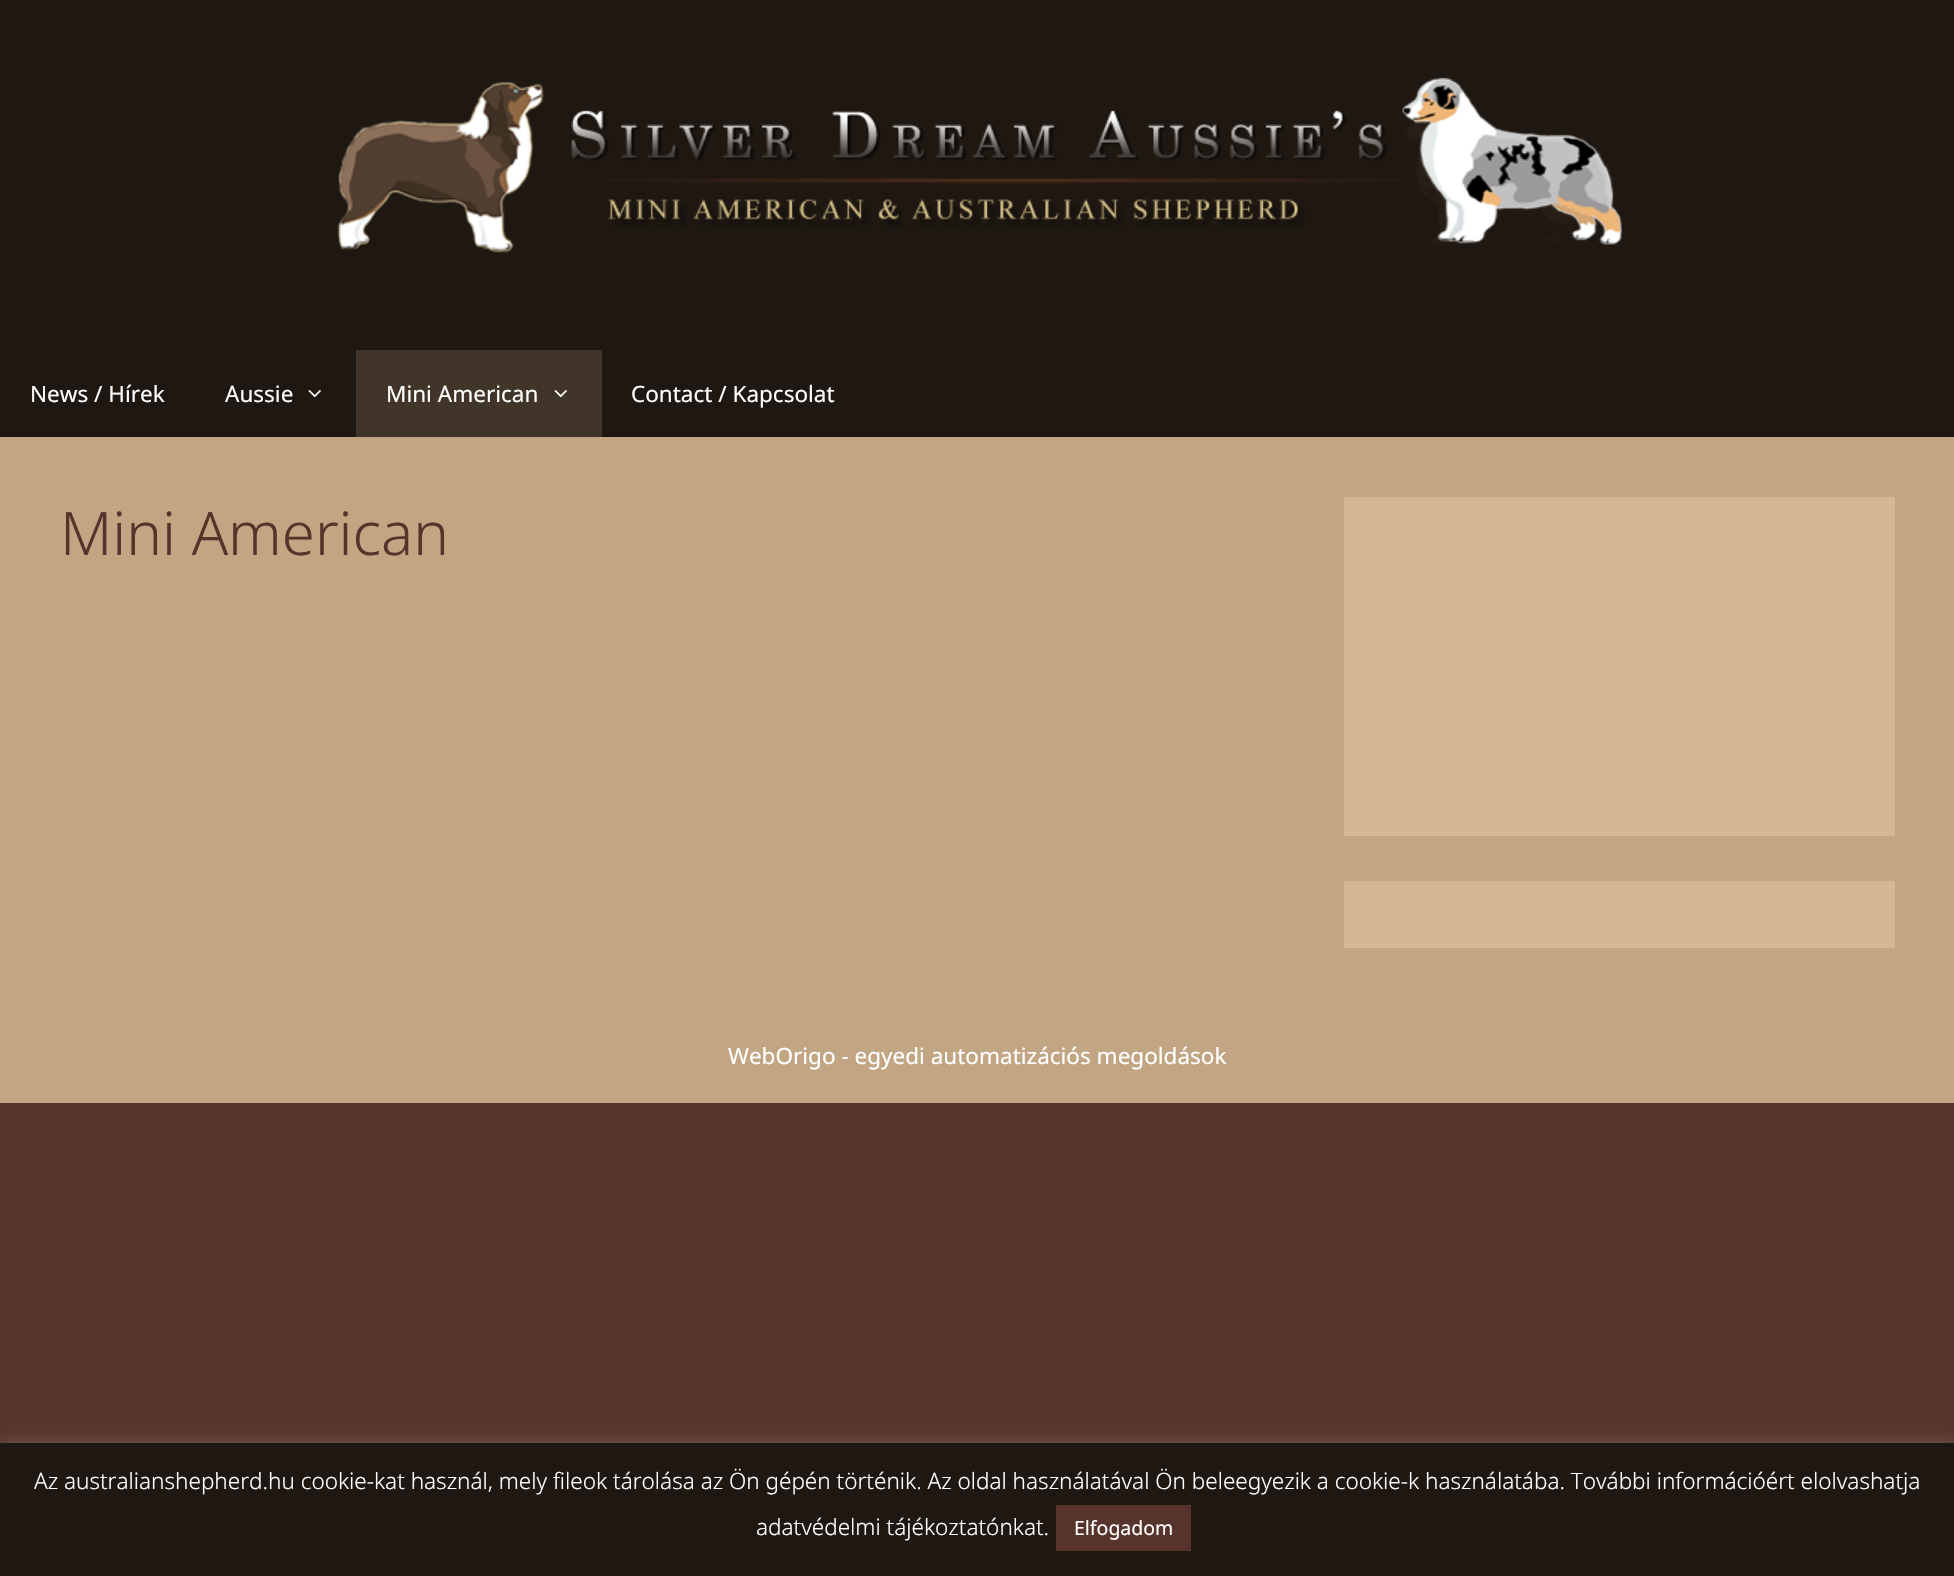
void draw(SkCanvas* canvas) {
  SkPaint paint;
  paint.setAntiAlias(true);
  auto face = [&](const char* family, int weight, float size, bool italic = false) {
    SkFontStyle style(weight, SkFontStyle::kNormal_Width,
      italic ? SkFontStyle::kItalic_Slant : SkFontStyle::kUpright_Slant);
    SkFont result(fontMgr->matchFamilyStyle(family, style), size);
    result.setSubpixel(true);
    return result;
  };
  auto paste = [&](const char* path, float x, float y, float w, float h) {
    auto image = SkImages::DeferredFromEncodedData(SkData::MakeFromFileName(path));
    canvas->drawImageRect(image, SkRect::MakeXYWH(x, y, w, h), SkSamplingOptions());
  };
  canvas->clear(0xff56342b);
  paint.setColor(0xff1f1812);
  canvas->drawRect(SkRect::MakeXYWH(0, 0, 1954, 437), paint);
  paste("img/1.png", 337, 77, 1285, 176);
  paste("img/2.png", 308, 390, 13, 8);
  paint.setColor(0xff403528);
  canvas->drawRect(SkRect::MakeXYWH(356, 350, 246, 87), paint);
  paste("img/3.png", 554, 390, 13, 8);
  {
    const struct { float x, y, w, h; SkColor color; } items[] = {
      {0, 437, 1954, 666, 0xffc2a583},
      {1344, 497, 551, 339, 0xffd4b795},
      {1344, 881, 551, 67, 0xffd4b795},
    };
    for (auto [x, y, w, h, color] : items) {
      paint.setColor(color);
      canvas->drawRect(SkRect::MakeXYWH(x, y, w, h), paint);
    }
  }
  paint.setColor(0x4dacabab);
  paint.setMaskFilter(SkMaskFilter::MakeBlur(kNormal_SkBlurStyle, 7.5f));
  canvas->drawRect(SkRect::MakeXYWH(0, 1442, 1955, 133), paint);
  paint.setMaskFilter(nullptr);
  paint.setColor(0xff1f1812);
  canvas->drawRect(SkRect::MakeXYWH(0, 1443, 1954, 133), paint);
  paint.setColor(0xff56342b);
  canvas->drawRect(SkRect::MakeXYWH(1056, 1505, 135, 46), paint);
  auto f0 = face("Noto Sans", 400, 22.5f);
  paint.setColor(0xffffffff);
  {
    const struct { const char* s; float x, y; } items[] = {
      {"News / Hírek", 30, 402},
      {"Aussie", 225, 402},
      {"Mini American", 386, 402},
      {"Contact / Kapcsolat", 631, 402},
    };
    for (auto [s, x, y] : items) {
      canvas->drawString(s, x, y, f0, paint);
    }
  }
  auto f1 = face("Noto Sans", 300, 60);
  paint.setColor(0xff56342b);
  canvas->drawString("Mini American", 60, 555, f1, paint);
  paint.setColor(0xffffffff);
  canvas->drawString("WebOrigo - egyedi automatizációs megoldások", 728, 1064, f0, paint);
  auto f2 = face("Noto Sans", 300, 22.5f);
  canvas->drawString("Az australianshepherd.hu cookie-kat használ, mely fileok tárolása az Ön gépén történik. Az oldal használatával Ön beleegyezik a cookie-k használatába. További információért elolvashatja", 34, 1489, f2, paint);
  canvas->drawString("adatvédelmi tájékoztatónkat.", 756, 1535, f2, paint);
  auto f3 = face("Noto Sans", 400, 19.5f);
  canvas->drawString("Elfogadom", 1074, 1535, f3, paint);
}
